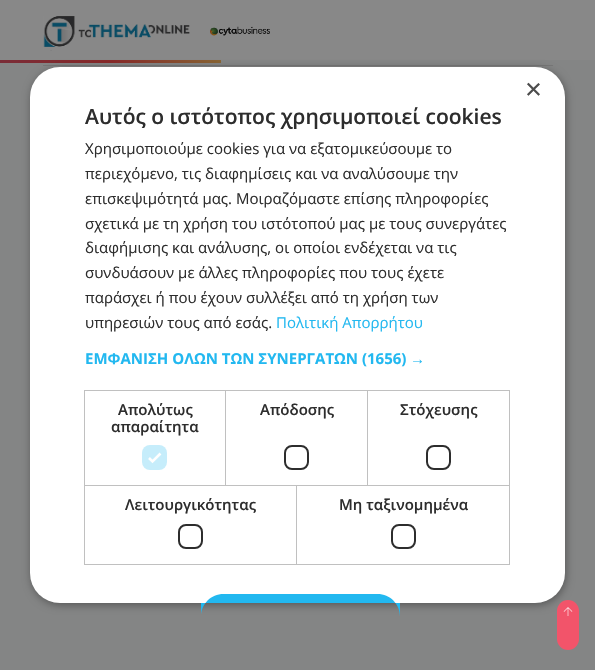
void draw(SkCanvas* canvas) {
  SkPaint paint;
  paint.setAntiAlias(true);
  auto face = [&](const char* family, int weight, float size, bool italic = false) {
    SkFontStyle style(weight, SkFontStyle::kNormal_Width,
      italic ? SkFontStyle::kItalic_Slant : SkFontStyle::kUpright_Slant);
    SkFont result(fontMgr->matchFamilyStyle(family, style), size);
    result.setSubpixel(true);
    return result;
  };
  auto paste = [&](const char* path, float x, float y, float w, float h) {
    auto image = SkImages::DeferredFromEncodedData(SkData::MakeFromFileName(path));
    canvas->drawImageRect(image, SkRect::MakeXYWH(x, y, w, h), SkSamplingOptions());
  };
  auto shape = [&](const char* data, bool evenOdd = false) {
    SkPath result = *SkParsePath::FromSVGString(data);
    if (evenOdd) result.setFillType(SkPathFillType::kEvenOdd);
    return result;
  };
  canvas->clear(0xff848585);
  paint.setColor(0xff888888);
  canvas->drawRect(SkRect::MakeXYWH(0, 0, 595, 60), paint);
  paste("img/1.png", 43, 16, 147, 35);
  paste("img/2.png", 210, 26, 60, 10);
  {
    const SkColor colors[] = {0xff7a2c37, 0xff882929, 0xff886534};
    const float stops[] = {0, 0.5f, 1};
    const SkPoint ends[] = {{0, 62}, {221, 61}};
    paint.setShader(SkGradientShader::MakeLinear(ends, colors, stops, 3, SkTileMode::kClamp));
    paint.setAlpha(255);
  }
  canvas->drawRect(SkRect::MakeXYWH(0, 60, 221, 3), paint);
  paint.setShader(nullptr);
  paint.setColor(0xff777777);
  canvas->drawRect(SkRect::MakeXYWH(43, 65, 510, 1), paint);
  paint.setColor(0x59000000);
  paint.setMaskFilter(SkMaskFilter::MakeBlur(kNormal_SkBlurStyle, 4));
  canvas->drawRoundRect(SkRect::MakeXYWH(31, 69, 535, 536), 30, 30, paint);
  paint.setMaskFilter(nullptr);
  paint.setColor(0xffffffff);
  canvas->drawRoundRect(SkRect::MakeXYWH(30, 67, 535, 536), 30, 30, paint);
  paint.setStroke(true);
  paint.setStrokeWidth(1);
  paint.setColor(0xffc0c0c0);
  canvas->drawRect(SkRect::MakeXYWH(84.5f, 390.5f, 141, 95), paint);
  paint.setStroke(false);
  paint.setColor(0xffc6edfb);
  canvas->drawRoundRect(SkRect::MakeXYWH(142, 445, 25, 25), 8, 8, paint);
  paint.setStroke(true);
  paint.setStrokeWidth(2.6f);
  paint.setColor(0xffffffff);
  canvas->drawPath(shape("M149 458L152.5 461.5L160.5 453.5"), paint);
  paint.setStrokeWidth(1);
  paint.setColor(0xffc0c0c0);
  canvas->drawRect(SkRect::MakeXYWH(225.5f, 390.5f, 142, 95), paint);
  paint.setStrokeWidth(2);
  paint.setColor(0xff2d2d2d);
  canvas->drawRoundRect(SkRect::MakeXYWH(285, 446, 23, 23), 7, 7, paint);
  paint.setStrokeWidth(1);
  paint.setColor(0xffc0c0c0);
  canvas->drawRect(SkRect::MakeXYWH(367.5f, 390.5f, 142, 95), paint);
  paint.setStrokeWidth(2);
  paint.setColor(0xff2d2d2d);
  canvas->drawRoundRect(SkRect::MakeXYWH(427, 446, 23, 23), 7, 7, paint);
  paint.setStrokeWidth(1);
  paint.setColor(0xffc0c0c0);
  canvas->drawRect(SkRect::MakeXYWH(84.5f, 485.5f, 212, 79), paint);
  paint.setStrokeWidth(2);
  paint.setColor(0xff2d2d2d);
  canvas->drawRoundRect(SkRect::MakeXYWH(179, 525, 23, 23), 7, 7, paint);
  paint.setStrokeWidth(1);
  paint.setColor(0xffc0c0c0);
  canvas->drawRect(SkRect::MakeXYWH(296.5f, 485.5f, 213, 79), paint);
  paint.setStrokeWidth(2);
  paint.setColor(0xff2d2d2d);
  canvas->drawRoundRect(SkRect::MakeXYWH(392, 525, 23, 23), 7, 7, paint);
  paint.setStroke(false);
  paint.setColor(0xff22b8f0);
  canvas->drawPath(shape("M223.5 594H377.5C390 594 400 604 400 616.5V603H201V616.5C201 604 211 594 223.5 594Z"), paint);
  paint.setColor(0xfff2546a);
  canvas->drawRoundRect(SkRect::MakeXYWH(557, 600, 22, 50), 11, 11, paint);
  paste("img/3.png", 563, 607, 10, 9);
  auto f0 = face("Liberation Sans", 400, 29);
  paint.setColor(0xff4d4d4d);
  canvas->drawString("×", 525, 99, f0, paint);
  auto f1 = face("Open Sans", 600, 21);
  paint.setColor(0xff2d2d2d);
  canvas->drawString("Αυτός ο ιστότοπος χρησιμοποιεί cookies", 85, 124, f1, paint);
  auto f2 = face("Open Sans", 400, 15);
  {
    const struct { const char* s; float x, y; } items[] = {
      {"Χρησιμοποιούμε cookies για να εξατομικεύσουμε το", 85, 154},
      {"περιεχόμενο, τις διαφημίσεις και να αναλύσουμε την", 85, 179},
      {"επισκεψιμότητά μας. Μοιραζόμαστε επίσης πληροφορίες", 85, 204},
      {"σχετικά με τη χρήση του ιστότοπού μας με τους συνεργάτες", 85, 229},
      {"διαφήμισης και ανάλυσης, οι οποίοι ενδέχεται να τις", 85, 253},
      {"συνδυάσουν με άλλες πληροφορίες που τους έχετε", 85, 278},
      {"παράσχει ή που έχουν συλλέξει από τη χρήση των", 85, 303},
      {"υπηρεσιών τους από εσάς.", 85, 328},
    };
    for (auto [s, x, y] : items) {
      canvas->drawString(s, x, y, f2, paint);
    }
  }
  paint.setColor(0xff22b8f0);
  canvas->drawString("Πολιτική Απορρήτου", 276, 328, f2, paint);
  auto f3 = face("Open Sans", 700, 15);
  canvas->drawString("ΕΜΦΑΝΙΣΗ ΟΛΩΝ ΤΩΝ ΣΥΝΕΡΓΑΤΩΝ (1656)", 85, 364, f3, paint);
  auto f4 = face("Liberation Sans", 700, 15);
  canvas->drawString("→", 410, 364, f4, paint);
  auto f5 = face("Open Sans", 600, 15);
  paint.setColor(0xff2d2d2d);
  {
    const struct { const char* s; float x, y; } items[] = {
      {"Απολύτως", 118, 415},
      {"απαραίτητα", 111, 432},
      {"Απόδοσης", 260, 415},
      {"Στόχευσης", 400, 415},
      {"Λειτουργικότητας", 125, 510},
      {"Μη ταξινομημένα", 339, 510},
    };
    for (auto [s, x, y] : items) {
      canvas->drawString(s, x, y, f5, paint);
    }
  }
}
